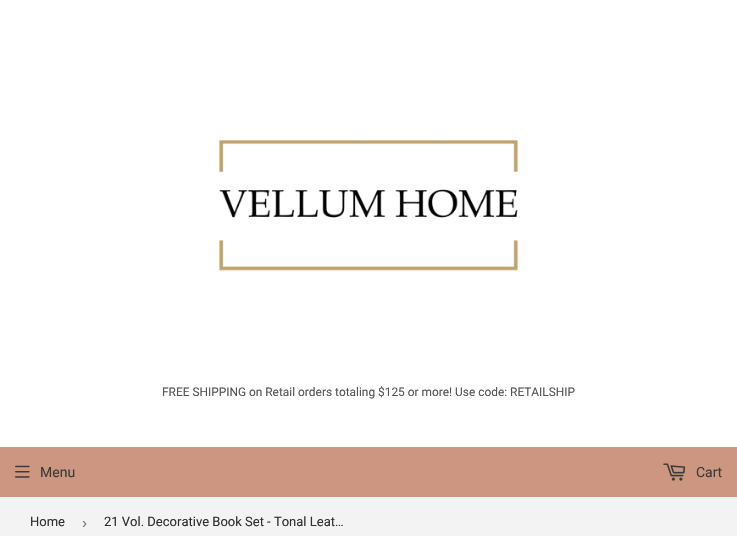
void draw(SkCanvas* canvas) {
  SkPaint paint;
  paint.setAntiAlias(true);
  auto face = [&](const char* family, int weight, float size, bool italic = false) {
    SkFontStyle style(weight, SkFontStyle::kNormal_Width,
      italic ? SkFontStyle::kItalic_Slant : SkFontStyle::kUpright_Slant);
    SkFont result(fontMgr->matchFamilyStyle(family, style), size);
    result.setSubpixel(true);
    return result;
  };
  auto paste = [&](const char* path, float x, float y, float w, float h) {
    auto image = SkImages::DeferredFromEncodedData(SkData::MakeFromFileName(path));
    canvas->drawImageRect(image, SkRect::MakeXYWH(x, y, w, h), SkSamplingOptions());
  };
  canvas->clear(0xfff3f3f3);
  paint.setColor(0xffffffff);
  canvas->drawRect(SkRect::MakeXYWH(0, 0, 737, 447), paint);
  paste("img/1.png", 218, 140, 300, 131);
  paint.setColor(0xffcd9680);
  canvas->drawRect(SkRect::MakeXYWH(0, 447, 737, 50), paint);
  paste("img/2.png", 15, 465, 15, 13);
  paste("img/3.png", 663, 463, 23, 18);
  auto f0 = face("Roboto", 400, 11.9f);
  paint.setColor(0xff545454);
  canvas->drawString("FREE SHIPPING on Retail orders totaling $125 or more! Use code: RETAILSHIP", 162, 396, f0, paint);
  auto f1 = face("Roboto", 400, 14);
  paint.setColor(0xff3a3a3a);
  canvas->drawString("Menu", 40, 477, f1, paint);
  canvas->drawString("Cart", 696, 477, f1, paint);
  auto f2 = face("Roboto", 400, 13);
  paint.setColor(0xff2f2f2f);
  canvas->drawString("Home", 30, 526, f2, paint);
  auto f3 = face("Liberation Sans", 400, 15);
  paint.setColor(0xff767676);
  canvas->drawString("›", 82, 528, f3, paint);
  paint.setColor(0xff2f2f2f);
  canvas->drawString("21 Vol. Decorative Book Set - Tonal Leat…", 104, 526, f2, paint);
}
